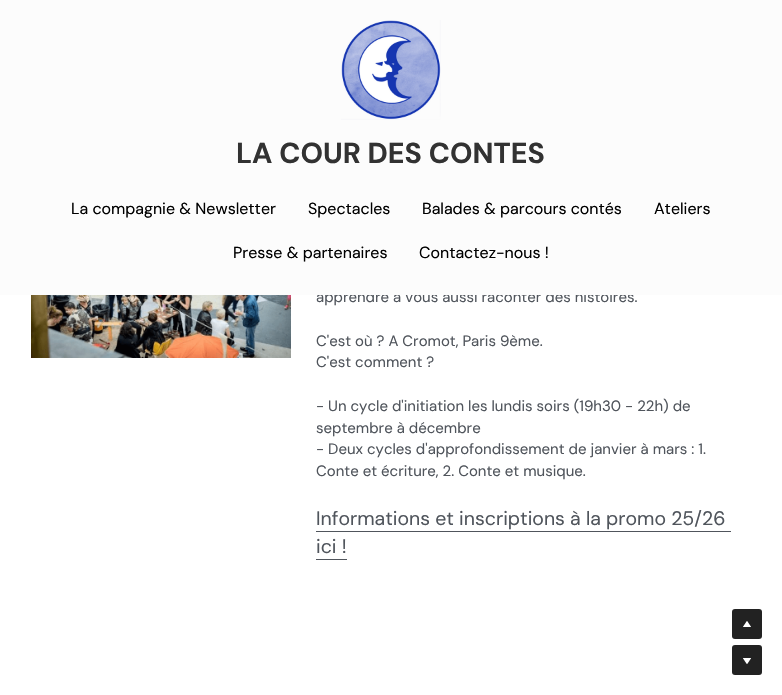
void draw(SkCanvas* canvas) {
  SkPaint paint;
  paint.setAntiAlias(true);
  auto face = [&](const char* family, int weight, float size, bool italic = false) {
    SkFontStyle style(weight, SkFontStyle::kNormal_Width,
      italic ? SkFontStyle::kItalic_Slant : SkFontStyle::kUpright_Slant);
    SkFont result(fontMgr->matchFamilyStyle(family, style), size);
    result.setSubpixel(true);
    return result;
  };
  auto paste = [&](const char* path, float x, float y, float w, float h) {
    auto image = SkImages::DeferredFromEncodedData(SkData::MakeFromFileName(path));
    canvas->drawImageRect(image, SkRect::MakeXYWH(x, y, w, h), SkSamplingOptions());
  };
  canvas->clear(0xffffffff);
  paste("img/2.png", 31, 295, 260, 63);
  paint.setColor(0xff50555c);
  canvas->drawRect(SkRect::MakeXYWH(316, 531, 415, 1), paint);
  canvas->drawRect(SkRect::MakeXYWH(316, 559, 31, 1), paint);
  paint.setColor(0xff222222);
  canvas->drawRoundRect(SkRect::MakeXYWH(732, 609, 30, 30), 3, 3, paint);
  paste("img/3.png", 743, 621, 8, 6);
  canvas->drawRoundRect(SkRect::MakeXYWH(732, 645, 30, 30), 3, 3, paint);
  paste("img/4.png", 743, 658, 8, 6);
  auto f0 = face("DM Sans", 400, 15);
  paint.setColor(0xff50555c);
  canvas->drawString("apprendre à vous aussi raconter des histoires.", 316, 302, f0, paint);
  paint.setColor(0xfffcfcfc);
  canvas->drawRect(SkRect::MakeXYWH(0, 0, 782, 295), paint);
  auto f1 = face("DM Sans", 700, 28.75f);
  paint.setColor(0xff323232);
  canvas->drawString("LA COUR DES CONTES", 236, 163, f1, paint);
  paste("img/1.png", 341, 20, 100, 100);
  auto f2 = face("DM Sans", 400, 16);
  paint.setColor(0xff000000);
  {
    const struct { const char* s; float x, y; } items[] = {
      {"Contactez-nous !", 419, 258},
      {"Presse & partenaires", 233, 258},
      {"Ateliers", 654, 214},
      {"Balades & parcours contés", 422, 214},
      {"Spectacles", 308, 214},
      {"La compagnie & Newsletter", 71, 214},
    };
    for (auto [s, x, y] : items) {
      canvas->drawString(s, x, y, f2, paint);
    }
  }
  paint.setColor(0xff50555c);
  {
    const struct { const char* s; float x, y; } items[] = {
      {"C'est où ? A Cromot, Paris 9ème.", 316, 346},
      {"C'est comment ?", 316, 367},
      {"- Un cycle d'initiation les lundis soirs (19h30 - 22h) de", 316, 411},
      {"septembre à décembre", 316, 433},
      {"- Deux cycles d'approfondissement de janvier à mars : 1.", 316, 454},
      {"Conte et écriture, 2. Conte et musique.", 316, 476},
    };
    for (auto [s, x, y] : items) {
      canvas->drawString(s, x, y, f0, paint);
    }
  }
  auto f3 = face("DM Sans", 400, 19.5f);
  canvas->drawString("Informations et inscriptions à la promo 25/26", 316, 525, f3, paint);
  canvas->drawString("ici !", 316, 553, f3, paint);
}
